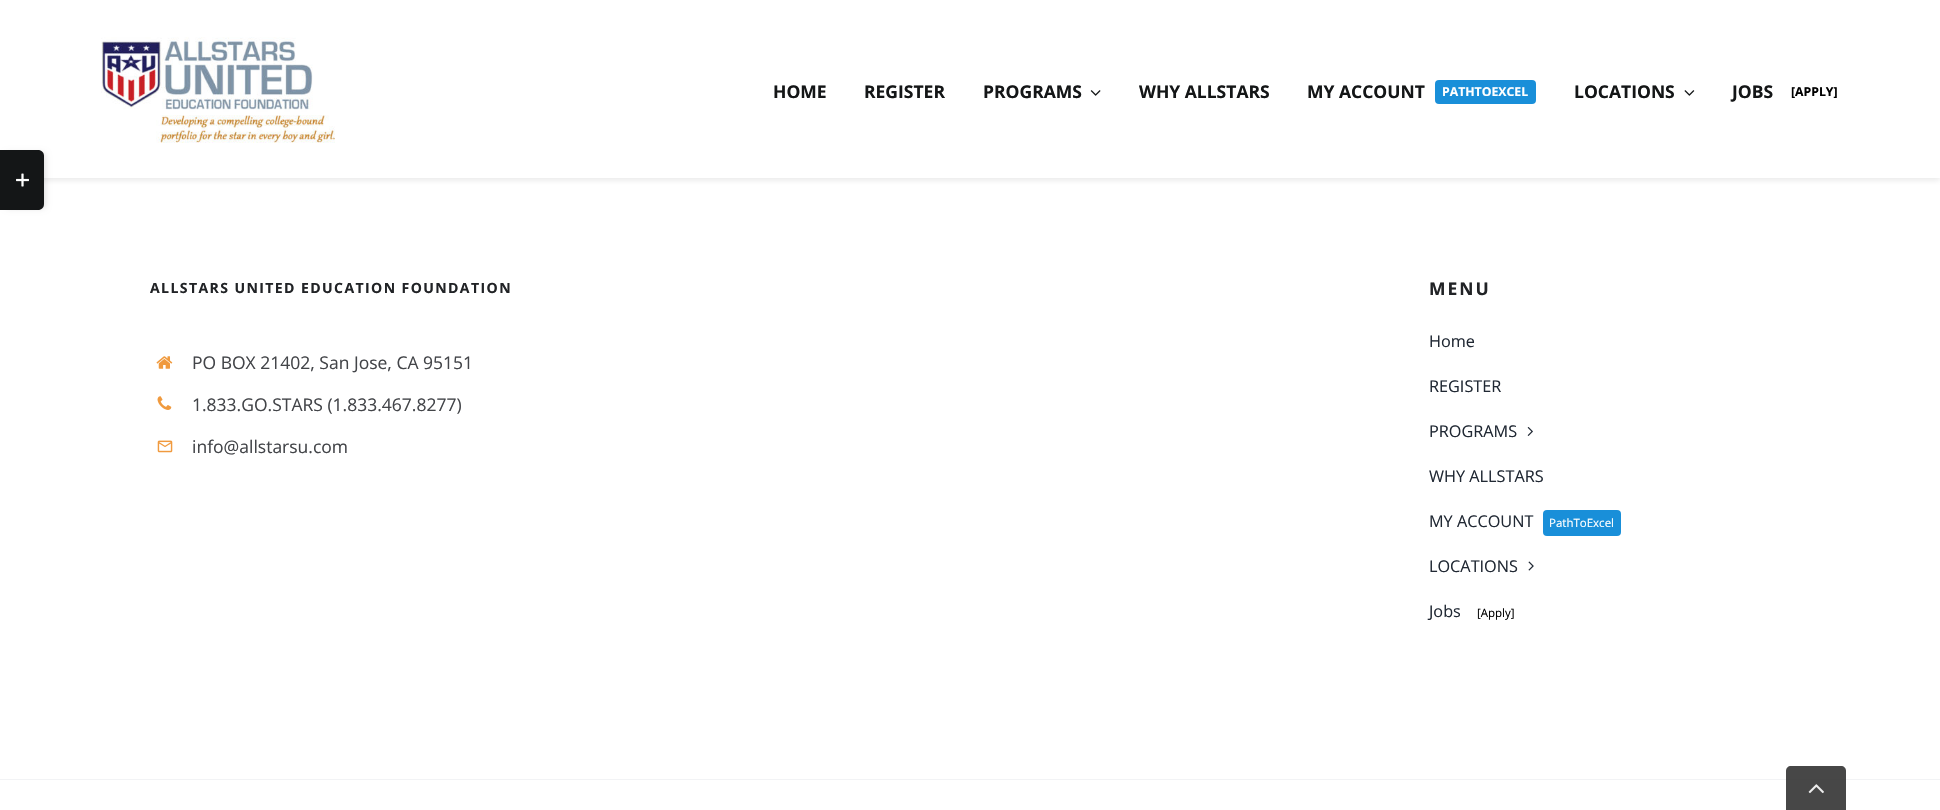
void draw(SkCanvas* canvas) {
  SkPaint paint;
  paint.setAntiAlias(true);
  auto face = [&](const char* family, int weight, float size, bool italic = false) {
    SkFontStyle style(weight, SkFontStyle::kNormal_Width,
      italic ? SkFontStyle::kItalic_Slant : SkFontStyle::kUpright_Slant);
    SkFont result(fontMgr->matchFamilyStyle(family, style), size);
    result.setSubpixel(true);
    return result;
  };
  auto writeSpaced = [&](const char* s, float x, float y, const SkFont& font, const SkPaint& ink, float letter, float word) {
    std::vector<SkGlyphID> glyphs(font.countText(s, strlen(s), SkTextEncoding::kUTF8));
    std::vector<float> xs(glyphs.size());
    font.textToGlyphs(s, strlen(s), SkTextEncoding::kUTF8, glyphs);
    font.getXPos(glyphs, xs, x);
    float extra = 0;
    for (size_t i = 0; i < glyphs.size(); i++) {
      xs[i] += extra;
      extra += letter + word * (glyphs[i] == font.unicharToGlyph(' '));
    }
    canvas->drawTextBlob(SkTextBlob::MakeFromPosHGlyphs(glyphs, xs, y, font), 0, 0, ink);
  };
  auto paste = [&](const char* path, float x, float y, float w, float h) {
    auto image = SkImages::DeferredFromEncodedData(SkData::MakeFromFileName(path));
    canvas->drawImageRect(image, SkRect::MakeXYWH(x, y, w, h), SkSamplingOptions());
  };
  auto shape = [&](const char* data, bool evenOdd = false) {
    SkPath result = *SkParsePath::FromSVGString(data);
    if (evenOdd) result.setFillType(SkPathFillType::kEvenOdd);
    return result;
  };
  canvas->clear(0xffffffff);
  paint.setColor(0x1a131516);
  paint.setMaskFilter(SkMaskFilter::MakeBlur(kNormal_SkBlurStyle, 3));
  canvas->drawRect(SkRect::MakeXYWH(0, 3, 1940, 177), paint);
  paint.setMaskFilter(nullptr);
  paint.setColor(0xffffffff);
  canvas->drawRect(SkRect::MakeXYWH(0, 0, 1940, 178), paint);
  paste("img/1.png", 101, 37, 234, 106);
  paste("img/2.png", 1090, 90, 11, 6);
  paint.setColor(0xff198fd9);
  canvas->drawRoundRect(SkRect::MakeXYWH(1435, 80, 101, 24), 4, 4, paint);
  paste("img/3.png", 1684, 90, 11, 6);
  paint.setColor(0x24000000);
  paint.setMaskFilter(SkMaskFilter::MakeBlur(kNormal_SkBlurStyle, 3));
  canvas->drawRoundRect(SkRect::MakeXYWH(6, 153, 39, 55), 4, 4, paint);
  paint.setMaskFilter(nullptr);
  paint.setColor(0xff141617);
  canvas->drawPath(shape("M0 150H38C41.5 150 44 152.5 44 156V204C44 207.5 41.5 210 38 210H0Z"), paint);
  paste("img/4.png", 16, 173, 13, 14);
  paste("img/5.png", 156, 356, 17, 13);
  paste("img/6.png", 157, 396, 15, 14);
  paste("img/7.png", 157, 440, 16, 13);
  paste("img/8.png", 1527, 427, 6, 9);
  paint.setColor(0xff198fd9);
  canvas->drawRoundRect(SkRect::MakeXYWH(1543, 510, 78, 26), 4, 4, paint);
  paste("img/9.png", 1528, 561, 6, 10);
  paint.setColor(0xfff2f3f5);
  canvas->drawRect(SkRect::MakeXYWH(0, 779, 1940, 1), paint);
  paint.setColor(0xe6333333);
  canvas->drawPath(shape("M1791 766H1841C1844 766 1846 768 1846 771V810H1786V771C1786 768 1788 766 1791 766Z"), paint);
  paste("img/10.png", 1808, 784, 16, 10);
  auto f0 = face("Open Sans", 700, 17.5f);
  paint.setColor(0xff141617);
  {
    const struct { const char* s; float x, y; } items[] = {
      {"HOME", 773, 98},
      {"REGISTER", 864, 98},
      {"PROGRAMS", 983, 98},
      {"WHY ALLSTARS", 1139, 98},
      {"MY ACCOUNT", 1307, 98},
    };
    for (auto [s, x, y] : items) {
      canvas->drawString(s, x, y, f0, paint);
    }
  }
  auto f1 = face("Open Sans", 700, 12.25f);
  paint.setColor(0xffffffff);
  canvas->drawString("PATHTOEXCEL", 1442, 96, f1, paint);
  paint.setColor(0xff141617);
  canvas->drawString("LOCATIONS", 1574, 98, f0, paint);
  canvas->drawString("JOBS", 1732, 98, f0, paint);
  paint.setColor(0xff000000);
  canvas->drawString("[APPLY]", 1791, 96, f1, paint);
  auto f2 = face("Open Sans", 700, 14.05f);
  paint.setColor(0xff212326);
  writeSpaced("ALLSTARS UNITED EDUCATION FOUNDATION", 150, 293, f2, paint, 1.4f, 0);
  auto f3 = face("Open Sans", 400, 17.5f);
  paint.setColor(0xff434549);
  {
    const struct { const char* s; float x, y; } items[] = {
      {"PO BOX 21402, San Jose, CA 95151", 192, 369},
      {"1.833.GO.STARS (1.833.467.8277)", 192, 411},
      {"info@allstarsu.com", 192, 453},
    };
    for (auto [s, x, y] : items) {
      canvas->drawString(s, x, y, f3, paint);
    }
  }
  paint.setColor(0xff212326);
  writeSpaced("MENU", 1429, 295, f0, paint, 2, 0);
  auto f4 = face("Open Sans", 400, 16.25f);
  paint.setColor(0xff212934);
  {
    const struct { const char* s; float x, y; } items[] = {
      {"Home", 1429, 347},
      {"REGISTER", 1429, 392},
      {"PROGRAMS", 1429, 437},
      {"WHY ALLSTARS", 1429, 482},
      {"MY ACCOUNT", 1429, 527},
    };
    for (auto [s, x, y] : items) {
      canvas->drawString(s, x, y, f4, paint);
    }
  }
  auto f5 = face("Open Sans", 400, 11.5f);
  paint.setColor(0xffffffff);
  canvas->drawString("PathToExcel", 1549, 527, f5, paint);
  paint.setColor(0xff212934);
  canvas->drawString("LOCATIONS", 1429, 572, f4, paint);
  canvas->drawString("Jobs", 1429, 617, f4, paint);
  paint.setColor(0xff000000);
  canvas->drawString("[Apply]", 1477, 617, f5, paint);
}
